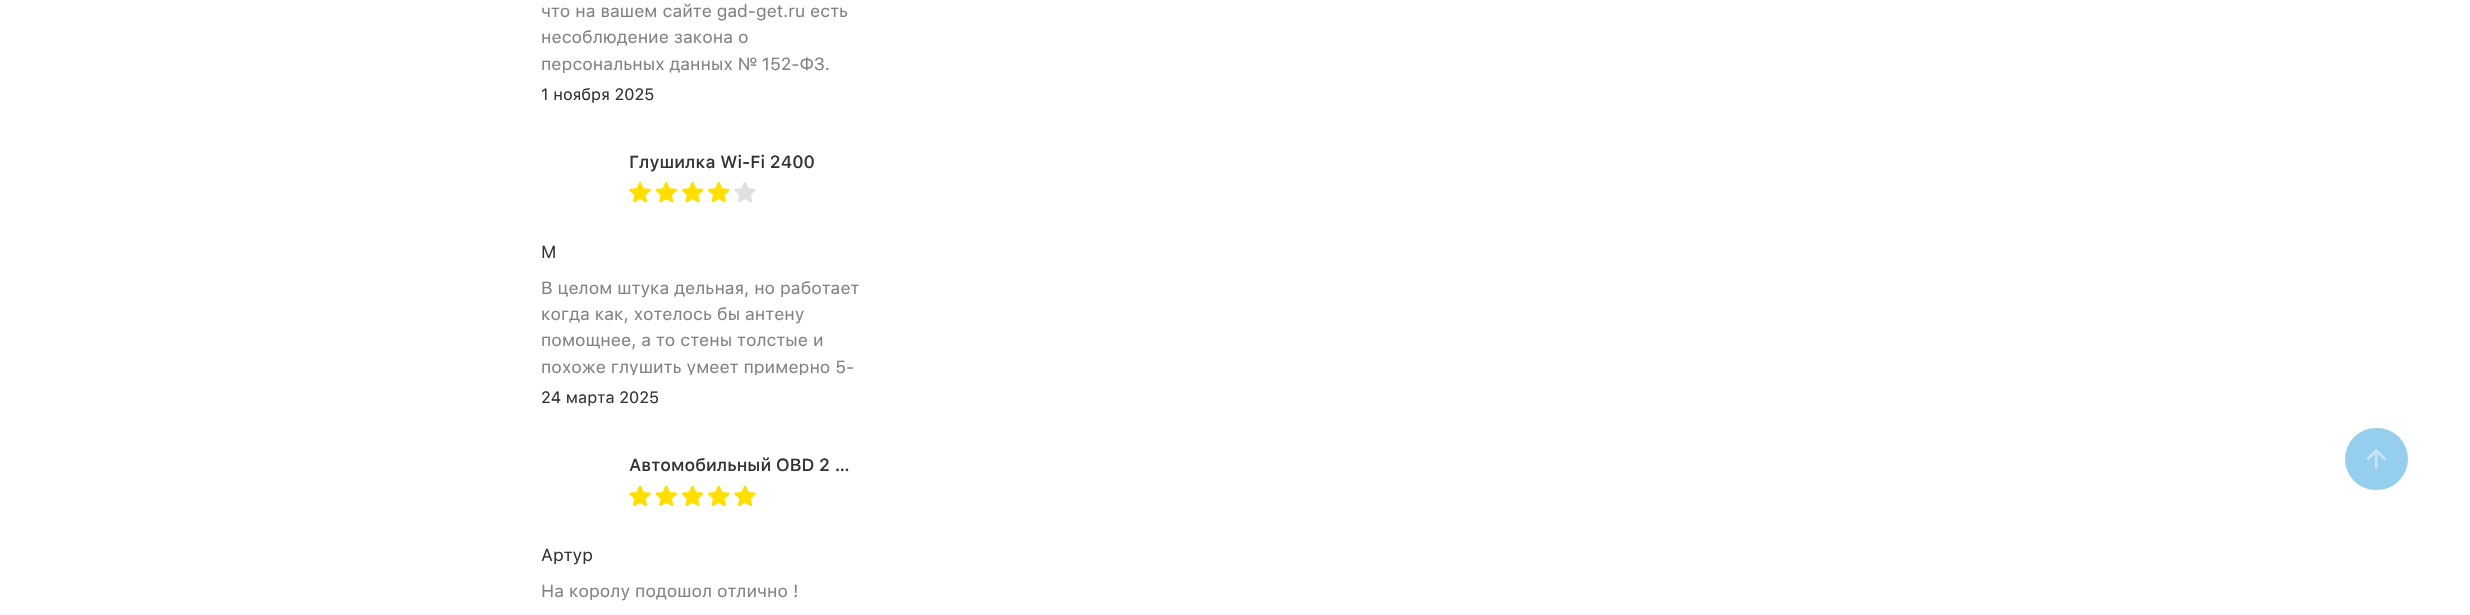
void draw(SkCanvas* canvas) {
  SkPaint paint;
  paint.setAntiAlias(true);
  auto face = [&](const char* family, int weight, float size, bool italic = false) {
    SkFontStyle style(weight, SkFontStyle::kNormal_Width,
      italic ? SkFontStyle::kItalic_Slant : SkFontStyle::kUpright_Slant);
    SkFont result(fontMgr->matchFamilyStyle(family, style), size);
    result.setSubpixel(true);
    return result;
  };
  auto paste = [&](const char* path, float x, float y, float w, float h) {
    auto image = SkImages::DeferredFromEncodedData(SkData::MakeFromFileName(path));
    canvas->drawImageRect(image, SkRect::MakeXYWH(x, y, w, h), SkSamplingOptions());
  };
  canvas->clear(0xffffffff);
  paste("img/1.png", 629, 182, 22, 21);
  paste("img/2.png", 655, 182, 22, 21);
  paste("img/3.png", 681, 182, 23, 21);
  paste("img/4.png", 708, 182, 22, 21);
  paste("img/5.png", 734, 182, 22, 21);
  paste("img/6.png", 629, 485, 22, 21);
  paste("img/7.png", 655, 485, 22, 21);
  paste("img/8.png", 681, 485, 23, 21);
  paste("img/9.png", 708, 485, 22, 21);
  paste("img/6.png", 734, 485, 22, 21);
  paint.setColor(0xff96ceed);
  canvas->drawRoundRect(SkRect::MakeXYWH(2345, 428, 63, 62), 31, 31, paint);
  paste("img/10.png", 2366, 449, 20, 20);
  auto f0 = face("SF Pro Text", 400, 17.5f);
  paint.setColor(0xff828282);
  {
    const struct { const char* s; float x, y; } items[] = {
      {"что на вашем сайте gad-get.ru есть", 541, 17},
      {"несоблюдение закона о", 541, 43},
      {"персональных данных № 152-ФЗ.", 541, 70},
    };
    for (auto [s, x, y] : items) {
      canvas->drawString(s, x, y, f0, paint);
    }
  }
  auto f1 = face("SF Pro Text", 400, 16.25f);
  paint.setColor(0xff333333);
  canvas->drawString("1 ноября 2025", 541, 100, f1, paint);
  auto f2 = face("SF Pro Text", 500, 17.5f);
  canvas->drawString("Глушилка Wi-Fi 2400", 629, 168, f2, paint);
  canvas->drawString("М", 541, 258, f0, paint);
  paint.setColor(0xff828282);
  {
    const struct { const char* s; float x, y; } items[] = {
      {"В целом штука дельная, но работает", 541, 294},
      {"когда как, хотелось бы антену", 541, 320},
      {"помощнее, а то стены толстые и", 541, 346},
    };
    for (auto [s, x, y] : items) {
      canvas->drawString(s, x, y, f0, paint);
    }
  }
  canvas->save();
  canvas->clipRect(SkRect::MakeXYWH(541, 275, 319, 100));
  canvas->drawString("похоже глушить умеет примерно 5-", 541, 373, f0, paint);
  canvas->restore();
  paint.setColor(0xff333333);
  canvas->drawString("24 марта 2025", 541, 403, f1, paint);
  canvas->drawString("Автомобильный OBD 2 …", 629, 471, f2, paint);
  canvas->drawString("Артур", 541, 561, f0, paint);
  paint.setColor(0xff828282);
  canvas->drawString("На королу подошол отлично !", 541, 597, f0, paint);
}
